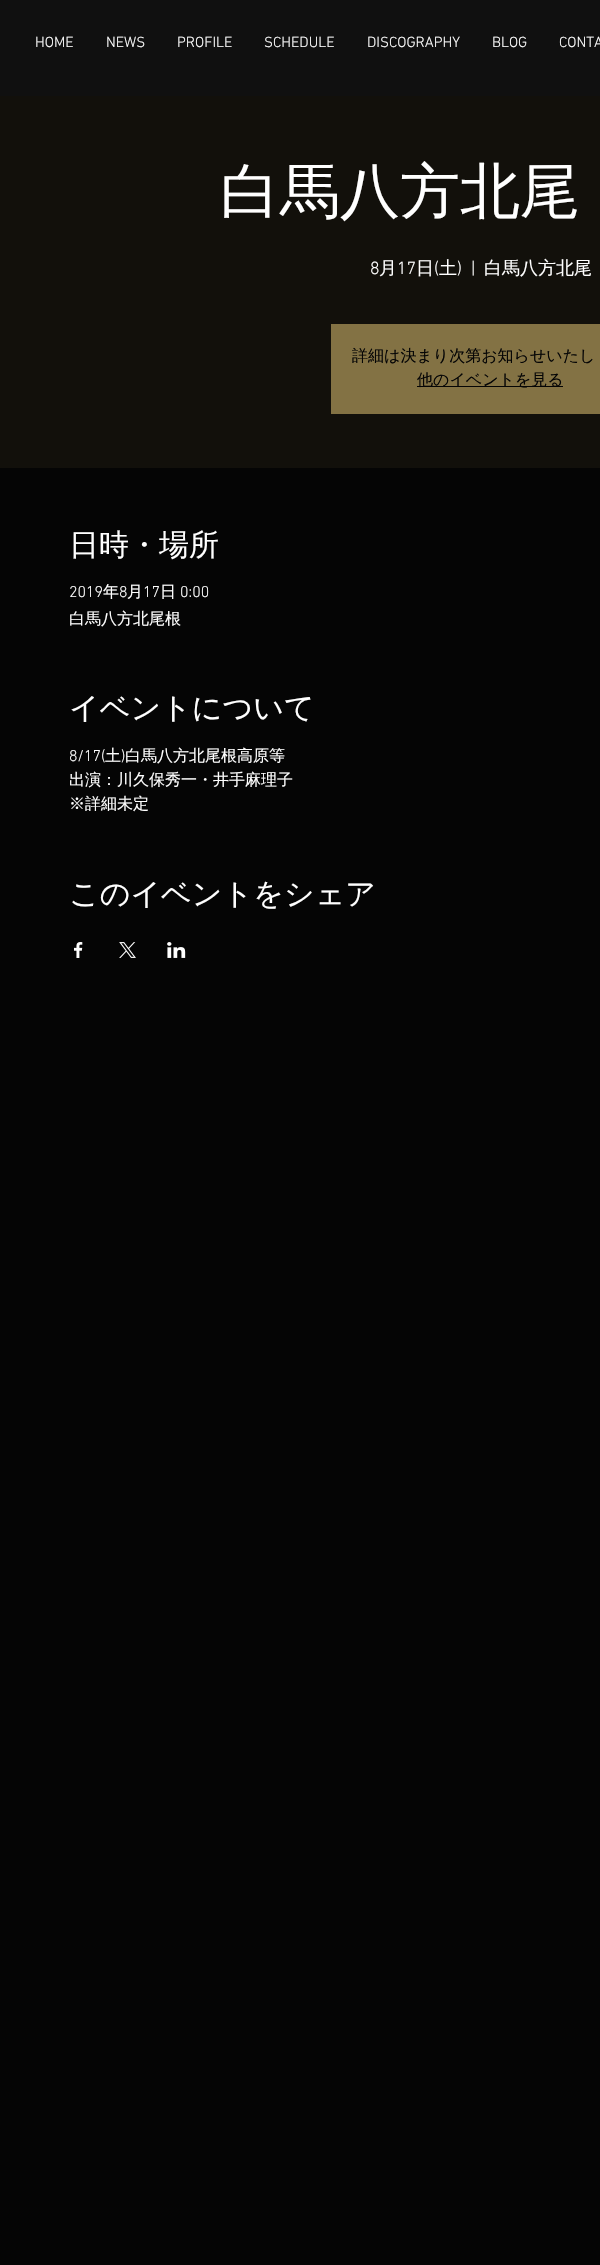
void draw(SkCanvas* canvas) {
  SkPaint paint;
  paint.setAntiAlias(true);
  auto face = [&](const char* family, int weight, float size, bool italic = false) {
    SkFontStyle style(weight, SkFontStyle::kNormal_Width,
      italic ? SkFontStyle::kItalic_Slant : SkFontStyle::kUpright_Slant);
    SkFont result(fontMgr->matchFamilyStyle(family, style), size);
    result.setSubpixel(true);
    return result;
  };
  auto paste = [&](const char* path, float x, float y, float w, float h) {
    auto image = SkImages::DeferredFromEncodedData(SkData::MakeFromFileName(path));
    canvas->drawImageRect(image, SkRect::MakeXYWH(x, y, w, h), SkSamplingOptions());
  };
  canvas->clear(0xff050505);
  {
    const struct { float x, y, w, h; SkColor color; } items[] = {
      {0, 0, 600, 96, 0xff101010},
      {0, 96, 600, 372, 0xff12100b},
      {331, 324, 269, 90, 0xff837244},
      {417, 386, 146, 1, 0xff050505},
    };
    for (auto [x, y, w, h, color] : items) {
      paint.setColor(color);
      canvas->drawRect(SkRect::MakeXYWH(x, y, w, h), paint);
    }
  }
  paste("img/1.png", 74, 942, 9, 16);
  paste("img/2.png", 119, 942, 17, 16);
  paste("img/3.png", 167, 942, 19, 16);
  auto f0 = face("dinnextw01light", 300, 15);
  paint.setColor(0xffffffff);
  {
    const struct { const char* s; float x, y; } items[] = {
      {"HOME", 35, 47},
      {"NEWS", 106, 47},
      {"PROFILE", 177, 47},
      {"SCHEDULE", 264, 47},
      {"DISCOGRAPHY", 367, 47},
      {"BLOG", 492, 47},
      {"CONTA", 559, 47},
    };
    for (auto [s, x, y] : items) {
      canvas->drawString(s, x, y, f0, paint);
    }
  }
  auto f1 = face("WenQuanYi Zen Hei", 500, 60);
  canvas->drawString("白馬八方北尾", 220, 212, f1, paint);
  auto f2 = face("dinnextw01light", 300, 18);
  canvas->drawString("8", 370, 274, f2, paint);
  auto f3 = face("WenQuanYi Zen Hei", 500, 18);
  canvas->drawString("月", 379, 274, f3, paint);
  canvas->drawString("17", 397, 274, f2, paint);
  canvas->drawString("日", 416, 274, f3, paint);
  canvas->drawString("(", 434, 274, f2, paint);
  canvas->drawString("土", 439, 274, f3, paint);
  canvas->drawString(")", 457, 274, f2, paint);
  canvas->drawString("|", 471, 274, f2, paint);
  canvas->drawString("白馬八方北尾", 484, 274, f3, paint);
  auto f4 = face("WenQuanYi Zen Hei", 500, 16);
  paint.setColor(0xff050505);
  canvas->drawString("詳細は決まり次第お知らせいたし", 352, 361, f4, paint);
  canvas->drawString("他のイベントを見る", 417, 385, f4, paint);
  auto f5 = face("WenQuanYi Zen Hei", 500, 30);
  paint.setColor(0xffffffff);
  canvas->drawString("日時・場所", 69, 555, f5, paint);
  auto f6 = face("dinnextw01light", 300, 16);
  canvas->drawString("2019", 69, 597, f6, paint);
  canvas->drawString("年", 103, 597, f4, paint);
  canvas->drawString("8", 119, 597, f6, paint);
  canvas->drawString("月", 127, 597, f4, paint);
  canvas->drawString("17", 143, 597, f6, paint);
  canvas->drawString("日", 160, 597, f4, paint);
  canvas->drawString("0:00", 180, 597, f6, paint);
  canvas->drawString("白馬八方北尾根", 69, 624, f4, paint);
  canvas->drawString("イベントについて", 69, 718, f5, paint);
  canvas->drawString("8/17(", 69, 761, f6, paint);
  canvas->drawString("土", 105, 761, f4, paint);
  canvas->drawString(")", 121, 761, f6, paint);
  {
    const struct { const char* s; float x, y; } items[] = {
      {"白馬八方北尾根高原等", 125, 761},
      {"出演：川久保秀一・井手麻理子", 69, 785},
      {"※詳細未定", 69, 809},
    };
    for (auto [s, x, y] : items) {
      canvas->drawString(s, x, y, f4, paint);
    }
  }
  canvas->drawString("このイベントをシェア", 69, 904, f5, paint);
}
